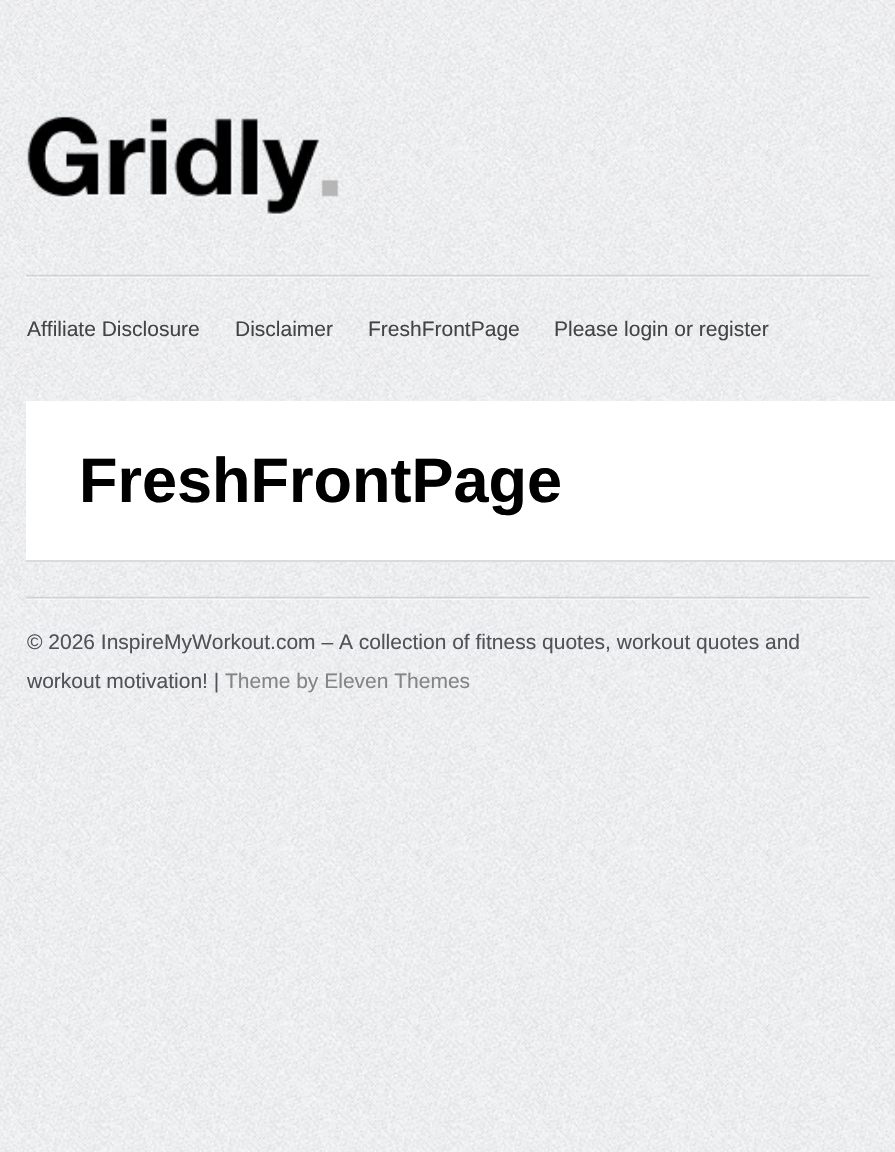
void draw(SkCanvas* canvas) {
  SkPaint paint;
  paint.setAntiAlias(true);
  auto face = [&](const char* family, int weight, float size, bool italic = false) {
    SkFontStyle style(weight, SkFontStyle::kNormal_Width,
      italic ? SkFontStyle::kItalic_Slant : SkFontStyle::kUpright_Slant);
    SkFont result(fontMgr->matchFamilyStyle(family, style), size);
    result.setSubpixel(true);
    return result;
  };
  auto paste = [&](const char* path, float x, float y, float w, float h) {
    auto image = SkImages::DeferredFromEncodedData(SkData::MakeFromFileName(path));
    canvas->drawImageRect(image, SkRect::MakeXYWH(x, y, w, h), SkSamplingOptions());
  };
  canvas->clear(0xffffffff);
  paste("img/1.png", 0, 0, 895, 1152);
  paste("img/2.png", 27, 116, 312, 100);
  paste("img/3.png", 26, 274, 844, 4);
  paint.setColor(0xffffffff);
  canvas->drawRect(SkRect::MakeXYWH(26, 401, 869, 159), paint);
  paint.setColor(0xffdbdbdb);
  canvas->drawRect(SkRect::MakeXYWH(26, 560, 869, 2), paint);
  paste("img/4.png", 26, 596, 844, 4);
  auto f0 = face("Liberation Sans", 400, 21);
  paint.setColor(0xff444444);
  {
    const struct { const char* s; float x, y; } items[] = {
      {"Affiliate Disclosure", 27, 336},
      {"Disclaimer", 235, 336},
      {"FreshFrontPage", 368, 336},
      {"Please login or register", 554, 336},
    };
    for (auto [s, x, y] : items) {
      canvas->drawString(s, x, y, f0, paint);
    }
  }
  auto f1 = face("Liberation Sans", 700, 63);
  paint.setColor(0xff000000);
  canvas->drawString("FreshFrontPage", 79, 502, f1, paint);
  paint.setColor(0xff4f5356);
  canvas->drawString("© 2026 InspireMyWorkout.com – A collection of fitness quotes, workout quotes and", 27, 649, f0, paint);
  canvas->drawString("workout motivation! |", 27, 688, f0, paint);
  paint.setColor(0xff858585);
  canvas->drawString("Theme by Eleven Themes", 225, 688, f0, paint);
}
